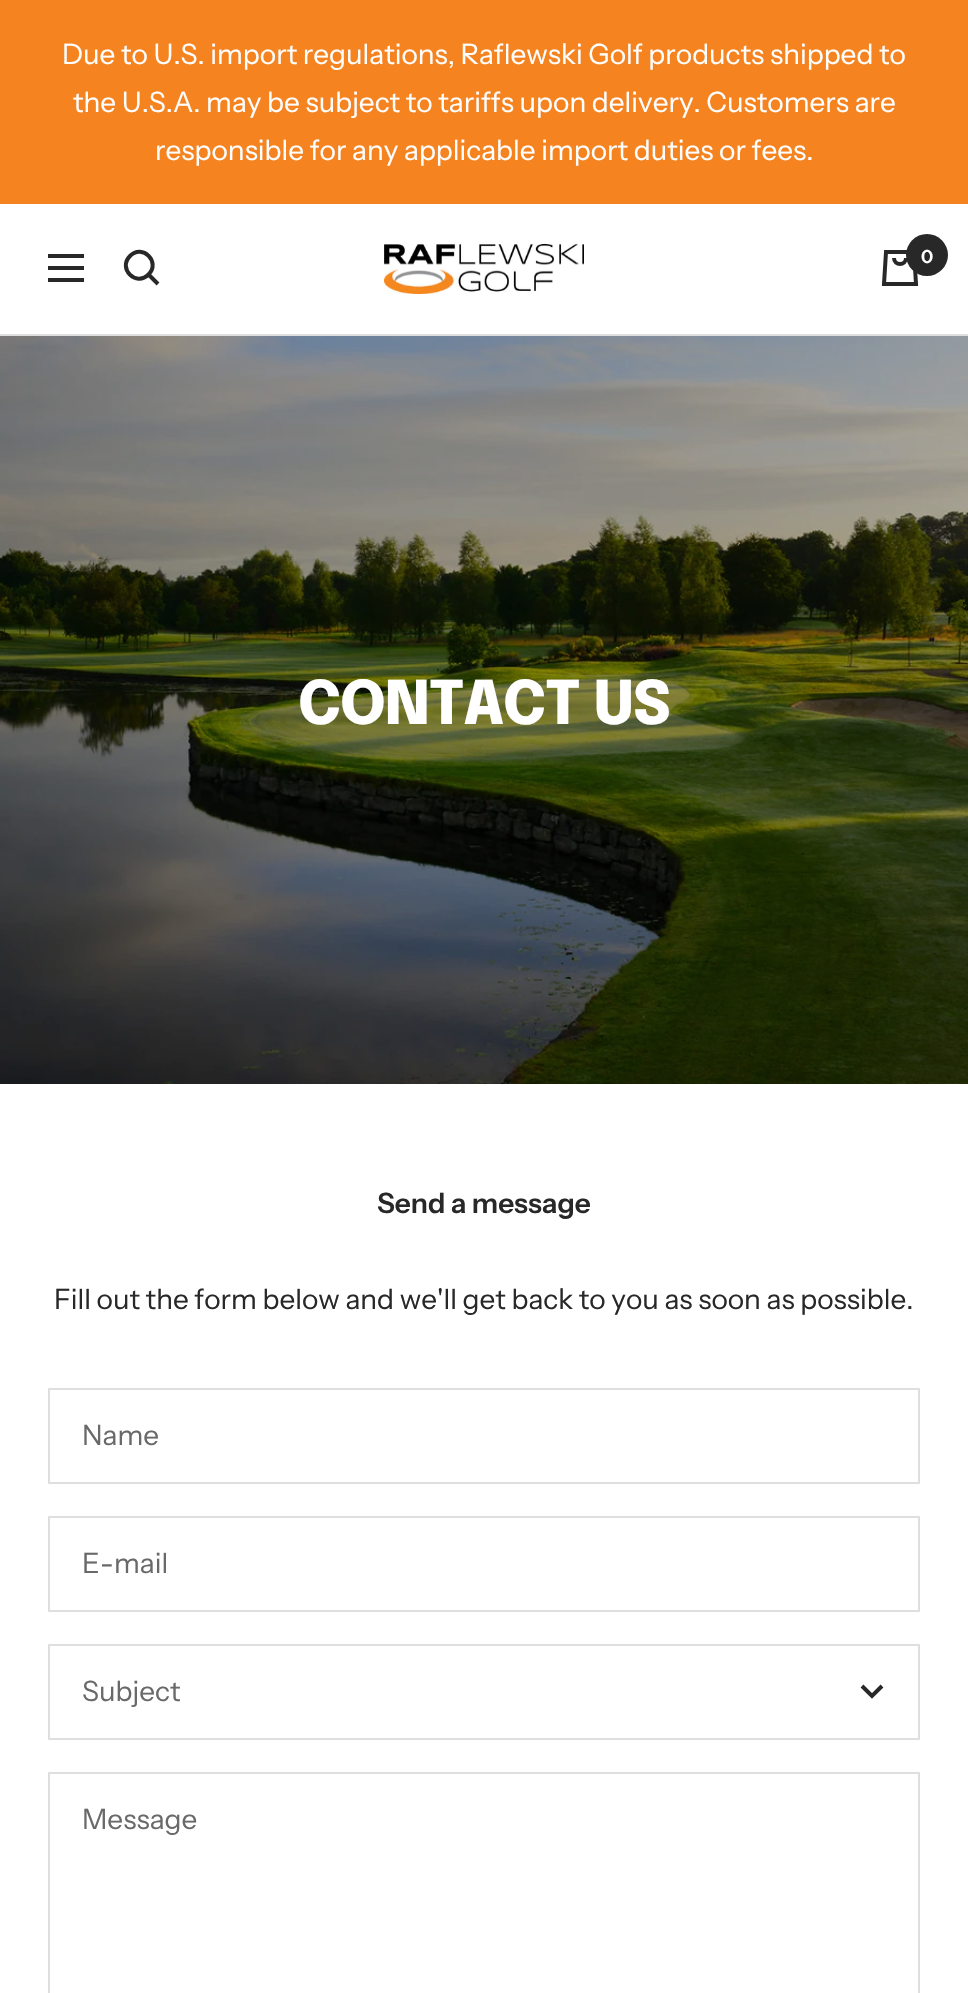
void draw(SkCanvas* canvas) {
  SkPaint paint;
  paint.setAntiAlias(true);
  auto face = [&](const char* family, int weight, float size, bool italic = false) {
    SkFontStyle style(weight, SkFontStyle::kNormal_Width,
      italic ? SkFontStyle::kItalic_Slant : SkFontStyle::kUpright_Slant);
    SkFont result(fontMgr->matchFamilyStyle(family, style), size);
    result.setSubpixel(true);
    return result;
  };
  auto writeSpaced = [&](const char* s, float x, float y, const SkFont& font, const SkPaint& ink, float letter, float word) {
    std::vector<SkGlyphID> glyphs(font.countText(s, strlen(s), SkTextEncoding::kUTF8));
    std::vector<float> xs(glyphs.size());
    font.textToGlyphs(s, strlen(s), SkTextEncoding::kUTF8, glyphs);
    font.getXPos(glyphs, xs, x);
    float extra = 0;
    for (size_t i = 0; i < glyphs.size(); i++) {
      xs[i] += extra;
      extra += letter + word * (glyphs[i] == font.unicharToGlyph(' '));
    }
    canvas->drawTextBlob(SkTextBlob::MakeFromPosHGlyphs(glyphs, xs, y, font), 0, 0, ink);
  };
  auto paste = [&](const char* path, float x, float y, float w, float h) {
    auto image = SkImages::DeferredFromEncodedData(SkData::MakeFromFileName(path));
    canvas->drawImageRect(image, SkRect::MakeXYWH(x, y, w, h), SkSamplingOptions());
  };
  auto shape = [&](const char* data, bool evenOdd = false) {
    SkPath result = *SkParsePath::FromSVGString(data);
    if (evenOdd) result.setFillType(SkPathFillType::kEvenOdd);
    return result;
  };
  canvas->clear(0xffffffff);
  paint.setColor(0xfff58320);
  canvas->drawRect(SkRect::MakeXYWH(0, 0, 968, 204), paint);
  paint.setColor(0xffdfdfdf);
  canvas->drawRect(SkRect::MakeXYWH(0, 334, 968, 2), paint);
  paint.setStroke(true);
  paint.setStrokeWidth(4);
  paint.setColor(0xff282828);
  canvas->drawPath(shape("M48 256H84M48 280H84ZM48 268H84Z"), paint);
  canvas->drawPath(shape("M148.5 274.5C161 262 142.5 243.5 130 256C117.5 268.5 136 287 148.5 274.5ZM148.5 274.5L158 284"), paint);
  paste("img/1.png", 384, 244, 200, 50);
  canvas->drawPath(shape("M886 252H914L916 284H884ZM894 258C894 266 906 266 906 258"), paint);
  paint.setStroke(false);
  canvas->drawCircle(927, 255, 21, paint);
  paste("img/2.png", 0, 336, 968, 748);
  paint.setStroke(true);
  paint.setStrokeWidth(2);
  paint.setColor(0xffdfdfdf);
  canvas->drawRect(SkRect::MakeXYWH(49, 1389, 870, 94), paint);
  canvas->drawRect(SkRect::MakeXYWH(49, 1517, 870, 94), paint);
  canvas->drawRect(SkRect::MakeXYWH(49, 1645, 870, 94), paint);
  paint.setStrokeWidth(4);
  paint.setColor(0xff282828);
  canvas->drawPath(shape("M862 1686L872 1696L882 1686"), paint);
  paint.setStrokeWidth(2);
  paint.setColor(0xffdfdfdf);
  canvas->drawRect(SkRect::MakeXYWH(49, 1773, 870, 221), paint);
  auto f0 = face("Instrument Sans", 400, 28);
  paint.setStroke(false);
  paint.setColor(0xffffffff);
  {
    const struct { const char* s; float x, y; } items[] = {
      {"Due to U.S. import regulations, Raflewski Golf products shipped to", 62, 64},
      {"the U.S.A. may be subject to tariffs upon delivery. Customers are", 73, 112},
      {"responsible for any applicable import duties or fees.", 155, 160},
    };
    for (auto [s, x, y] : items) {
      canvas->drawString(s, x, y, f0, paint);
    }
  }
  auto f1 = face("Instrument Sans", 600, 18);
  canvas->drawString("0", 921, 263, f1, paint);
  auto f2 = face("Epilogue", 800, 60);
  writeSpaced("CONTACT US", 298, 724, f2, paint, -1.25f, 0);
  auto f3 = face("Instrument Sans", 600, 28);
  paint.setColor(0xff282828);
  canvas->drawString("Send a message", 377, 1213, f3, paint);
  canvas->drawString("Fill out the form below and we'll get back to you as soon as possible.", 54, 1309, f0, paint);
  paint.setColor(0xff696969);
  {
    const struct { const char* s; float x, y; } items[] = {
      {"Name", 82, 1445},
      {"E-mail", 82, 1573},
      {"Subject", 82, 1701},
      {"Message", 82, 1829},
    };
    for (auto [s, x, y] : items) {
      canvas->drawString(s, x, y, f0, paint);
    }
  }
}
